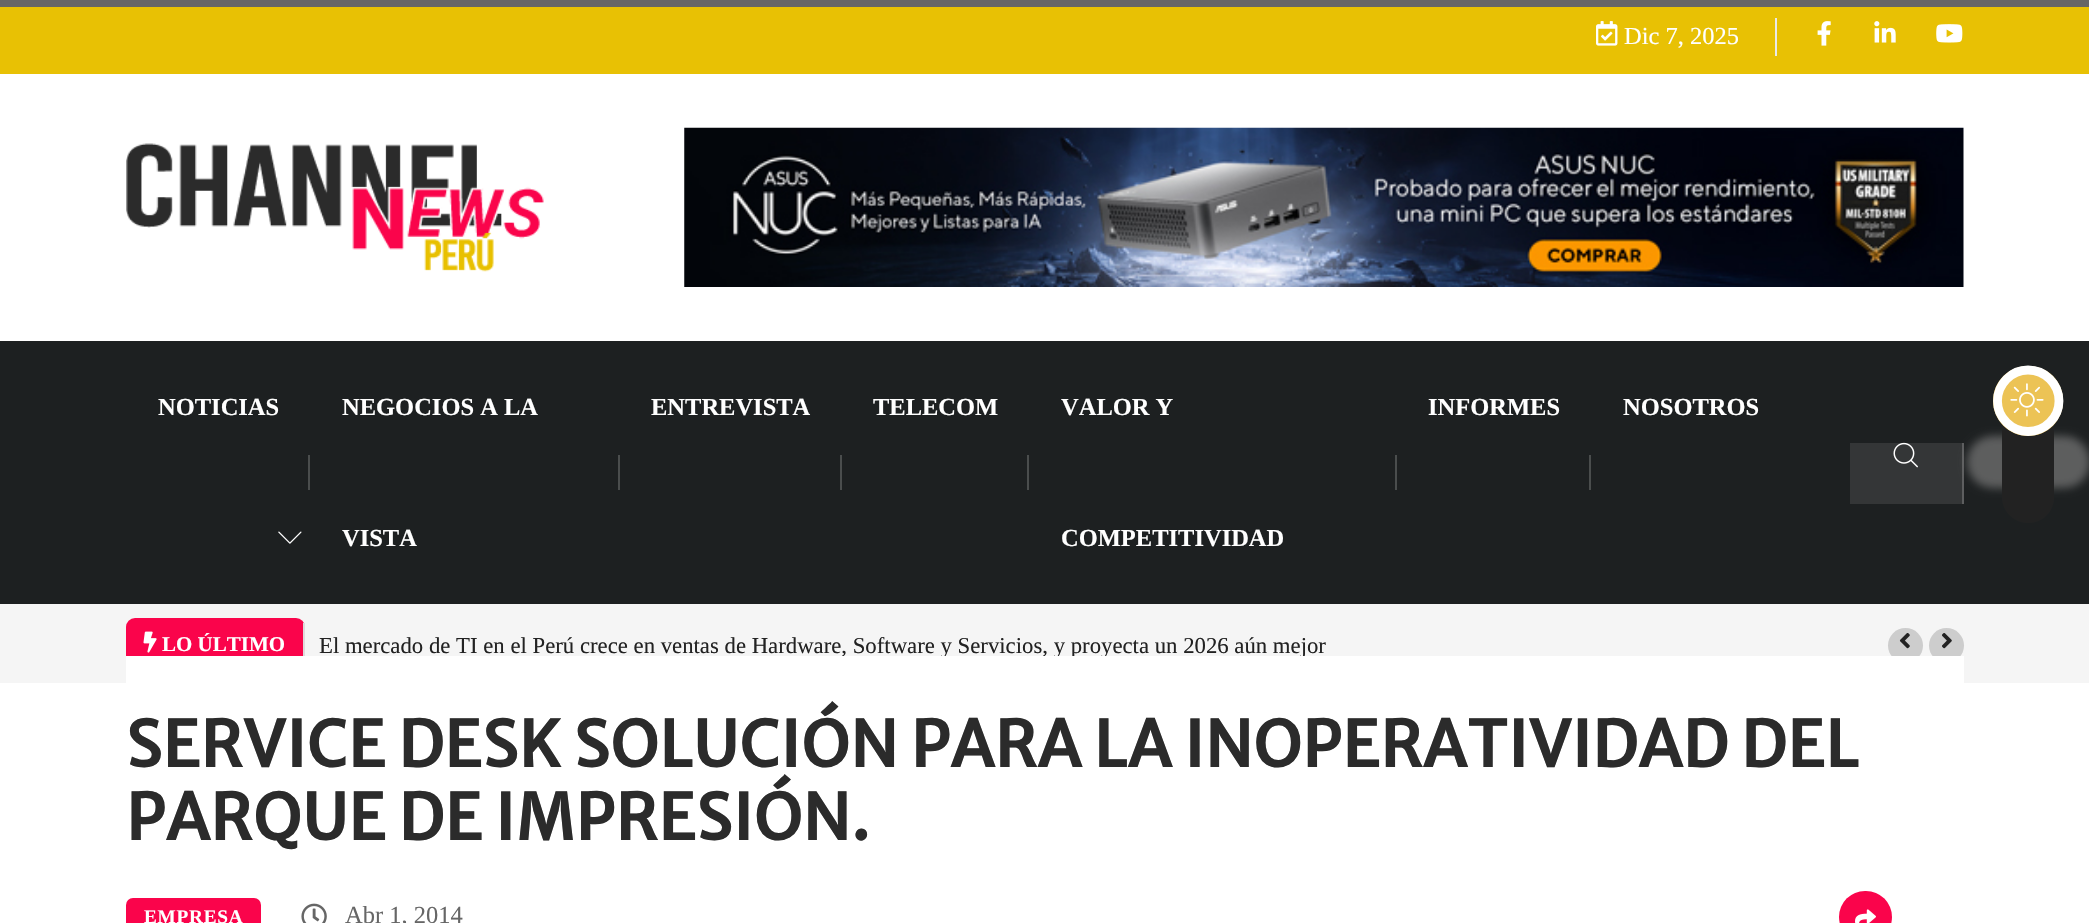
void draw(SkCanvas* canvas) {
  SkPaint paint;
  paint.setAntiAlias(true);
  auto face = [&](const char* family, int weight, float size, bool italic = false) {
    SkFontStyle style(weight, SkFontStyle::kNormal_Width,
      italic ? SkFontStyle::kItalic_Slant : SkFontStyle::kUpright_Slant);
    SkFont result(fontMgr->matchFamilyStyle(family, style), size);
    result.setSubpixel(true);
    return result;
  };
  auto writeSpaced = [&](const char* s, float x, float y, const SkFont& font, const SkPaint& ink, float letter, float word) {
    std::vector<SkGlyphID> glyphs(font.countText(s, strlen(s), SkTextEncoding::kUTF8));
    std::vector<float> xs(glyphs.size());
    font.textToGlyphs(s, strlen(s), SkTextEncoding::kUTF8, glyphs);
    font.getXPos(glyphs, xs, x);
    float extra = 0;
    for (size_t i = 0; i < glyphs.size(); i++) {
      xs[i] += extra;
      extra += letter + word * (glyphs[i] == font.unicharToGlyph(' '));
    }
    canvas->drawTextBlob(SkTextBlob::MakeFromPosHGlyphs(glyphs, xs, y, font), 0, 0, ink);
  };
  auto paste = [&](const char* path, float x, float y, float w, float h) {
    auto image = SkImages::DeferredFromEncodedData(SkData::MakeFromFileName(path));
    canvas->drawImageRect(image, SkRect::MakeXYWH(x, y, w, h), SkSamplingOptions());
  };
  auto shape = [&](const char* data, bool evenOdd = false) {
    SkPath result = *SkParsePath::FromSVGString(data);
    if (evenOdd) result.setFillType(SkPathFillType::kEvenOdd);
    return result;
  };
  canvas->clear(0xffffffff);
  {
    const struct { float x, y, w, h; SkColor color; } items[] = {
      {0, 0, 2089, 7, 0xff676666},
      {0, 7, 2089, 67, 0xffe8c104},
      {1775, 18, 2, 38, 0xffeaeaea},
    };
    for (auto [x, y, w, h, color] : items) {
      paint.setColor(color);
      canvas->drawRect(SkRect::MakeXYWH(x, y, w, h), paint);
    }
  }
  paste("img/1.png", 1596, 21, 22, 25);
  paste("img/2.png", 1817, 21, 14, 25);
  paste("img/3.png", 1874, 21, 22, 22);
  paste("img/4.png", 1936, 24, 27, 19);
  paste("img/5.png", 126, 143, 419, 129);
  paste("img/6.png", 684, 127, 1280, 160);
  paint.setColor(0xff1d2021);
  canvas->drawRect(SkRect::MakeXYWH(0, 341, 2089, 263), paint);
  paste("img/7.png", 278, 531, 24, 13);
  {
    const struct { float x, y, w, h; SkColor color; } items[] = {
      {308, 455, 2, 35, 0xff4a4d4d},
      {618, 455, 2, 35, 0xff4a4d4d},
      {840, 455, 2, 35, 0xff4a4d4d},
      {1027, 455, 2, 35, 0xff4a4d4d},
      {1395, 455, 2, 35, 0xff4a4d4d},
      {1589, 455, 2, 35, 0xff4a4d4d},
      {1850, 443, 112, 61, 0xff343637},
      {1962, 443, 2, 61, 0xff5d5e5f},
    };
    for (auto [x, y, w, h, color] : items) {
      paint.setColor(color);
      canvas->drawRect(SkRect::MakeXYWH(x, y, w, h), paint);
    }
  }
  paste("img/8.png", 1893, 442, 25, 26);
  paint.setColor(0xfff5f5f5);
  canvas->drawRect(SkRect::MakeXYWH(0, 604, 2089, 79), paint);
  paint.setColor(0xfffa044b);
  canvas->drawRoundRect(SkRect::MakeXYWH(126, 618, 179, 51), 9, 9, paint);
  paint.setColor(0xffdedbdb);
  canvas->drawRect(SkRect::MakeXYWH(303, 623, 2, 33), paint);
  paste("img/9.png", 143, 631, 14, 22);
  paint.setColor(0xffcdcdcd);
  canvas->drawCircle(1905.5f, 645.5f, 17.5f, paint);
  paste("img/10.png", 1899, 633, 11, 16);
  canvas->drawCircle(1946.5f, 645.5f, 17.5f, paint);
  paste("img/11.png", 1942, 633, 10, 16);
  paint.setColor(0xfffa044b);
  canvas->drawRoundRect(SkRect::MakeXYWH(126, 898, 135, 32), 7, 7, paint);
  paste("img/12.png", 301, 903, 26, 20);
  canvas->drawRoundRect(SkRect::MakeXYWH(1839, 891, 53, 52), 26, 26, paint);
  paste("img/13.png", 1855, 909, 21, 14);
  paint.setColor(0xb3777777);
  paint.setMaskFilter(SkMaskFilter::MakeBlur(kNormal_SkBlurStyle, 4.5f));
  canvas->drawRoundRect(SkRect::MakeXYWH(1967, 436, 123, 52), 26, 26, paint);
  paint.setMaskFilter(nullptr);
  paint.setColor(0xff222222);
  canvas->drawPath(shape("M2054 427V497C2054 511 2043 523 2028 523C2014 523 2002 511 2002 497V427C2002 413 2014 401 2028 401C2043 401 2054 413 2054 427Z"), paint);
  paint.setColor(0xffecc355);
  canvas->drawPath(shape("M2063 401C2063 420 2048 436 2028 436C2009 436 1993 420 1993 401C1993 381 2009 366 2028 366C2048 366 2063 381 2063 401Z"), paint);
  paint.setStroke(true);
  paint.setStrokeWidth(8.8f);
  paint.setColor(0xffffffff);
  canvas->drawPath(shape("M2059 401C2059 417.5 2045 431.5 2028 431.5C2011.5 431.5 1997.5 417.5 1997.5 401C1997.5 384 2011.5 370 2028 370C2045 370 2059 384 2059 401Z"), paint);
  paste("img/14.png", 2010, 383, 34, 34);
  auto f0 = face("Liberation Serif", 400, 24.5f);
  paint.setStroke(false);
  canvas->drawString("Dic 7, 2025", 1624, 44, f0, paint);
  auto f1 = face("Liberation Serif", 700, 24.5f);
  {
    const struct { const char* s; float x, y; } items[] = {
      {"NOTICIAS", 158, 415},
      {"NEGOCIOS A LA", 342, 415},
      {"VISTA", 342, 546},
      {"ENTREVISTA", 651, 415},
      {"TELECOM", 873, 415},
      {"VALOR Y", 1061, 415},
      {"COMPETITIVIDAD", 1061, 546},
      {"INFORMES", 1428, 415},
      {"NOSOTROS", 1623, 415},
    };
    for (auto [s, x, y] : items) {
      canvas->drawString(s, x, y, f1, paint);
    }
  }
  auto f2 = face("Liberation Serif", 700, 21);
  canvas->drawString("LO ÚLTIMO", 162, 651, f2, paint);
  auto f3 = face("Liberation Serif", 400, 22.75f);
  paint.setColor(0xff222222);
  canvas->drawString("El mercado de TI en el Perú crece en ventas de Hardware, Software y Servicios, y proyecta un 2026 aún mejor", 319, 653, f3, paint);
  paint.setColor(0xffffffff);
  canvas->drawRect(SkRect::MakeXYWH(126, 656, 1838, 27), paint);
  auto f4 = face("Merriweather Sans", 700, 63);
  paint.setColor(0xff2b2b2b);
  writeSpaced("SERVICE DESK SOLUCIÓN PARA LA INOPERATIVIDAD DEL", 126, 767, f4, paint, 0.8f, 0);
  writeSpaced("PARQUE DE IMPRESIÓN.", 126, 840, f4, paint, 0.8f, 0);
  auto f5 = face("Liberation Serif", 700, 19.25f);
  paint.setColor(0xffffffff);
  writeSpaced("EMPRESA", 144, 923, f5, paint, 0.75f, 0);
  paint.setColor(0xff666666);
  canvas->drawString("Abr 1, 2014", 345, 923, f0, paint);
}
